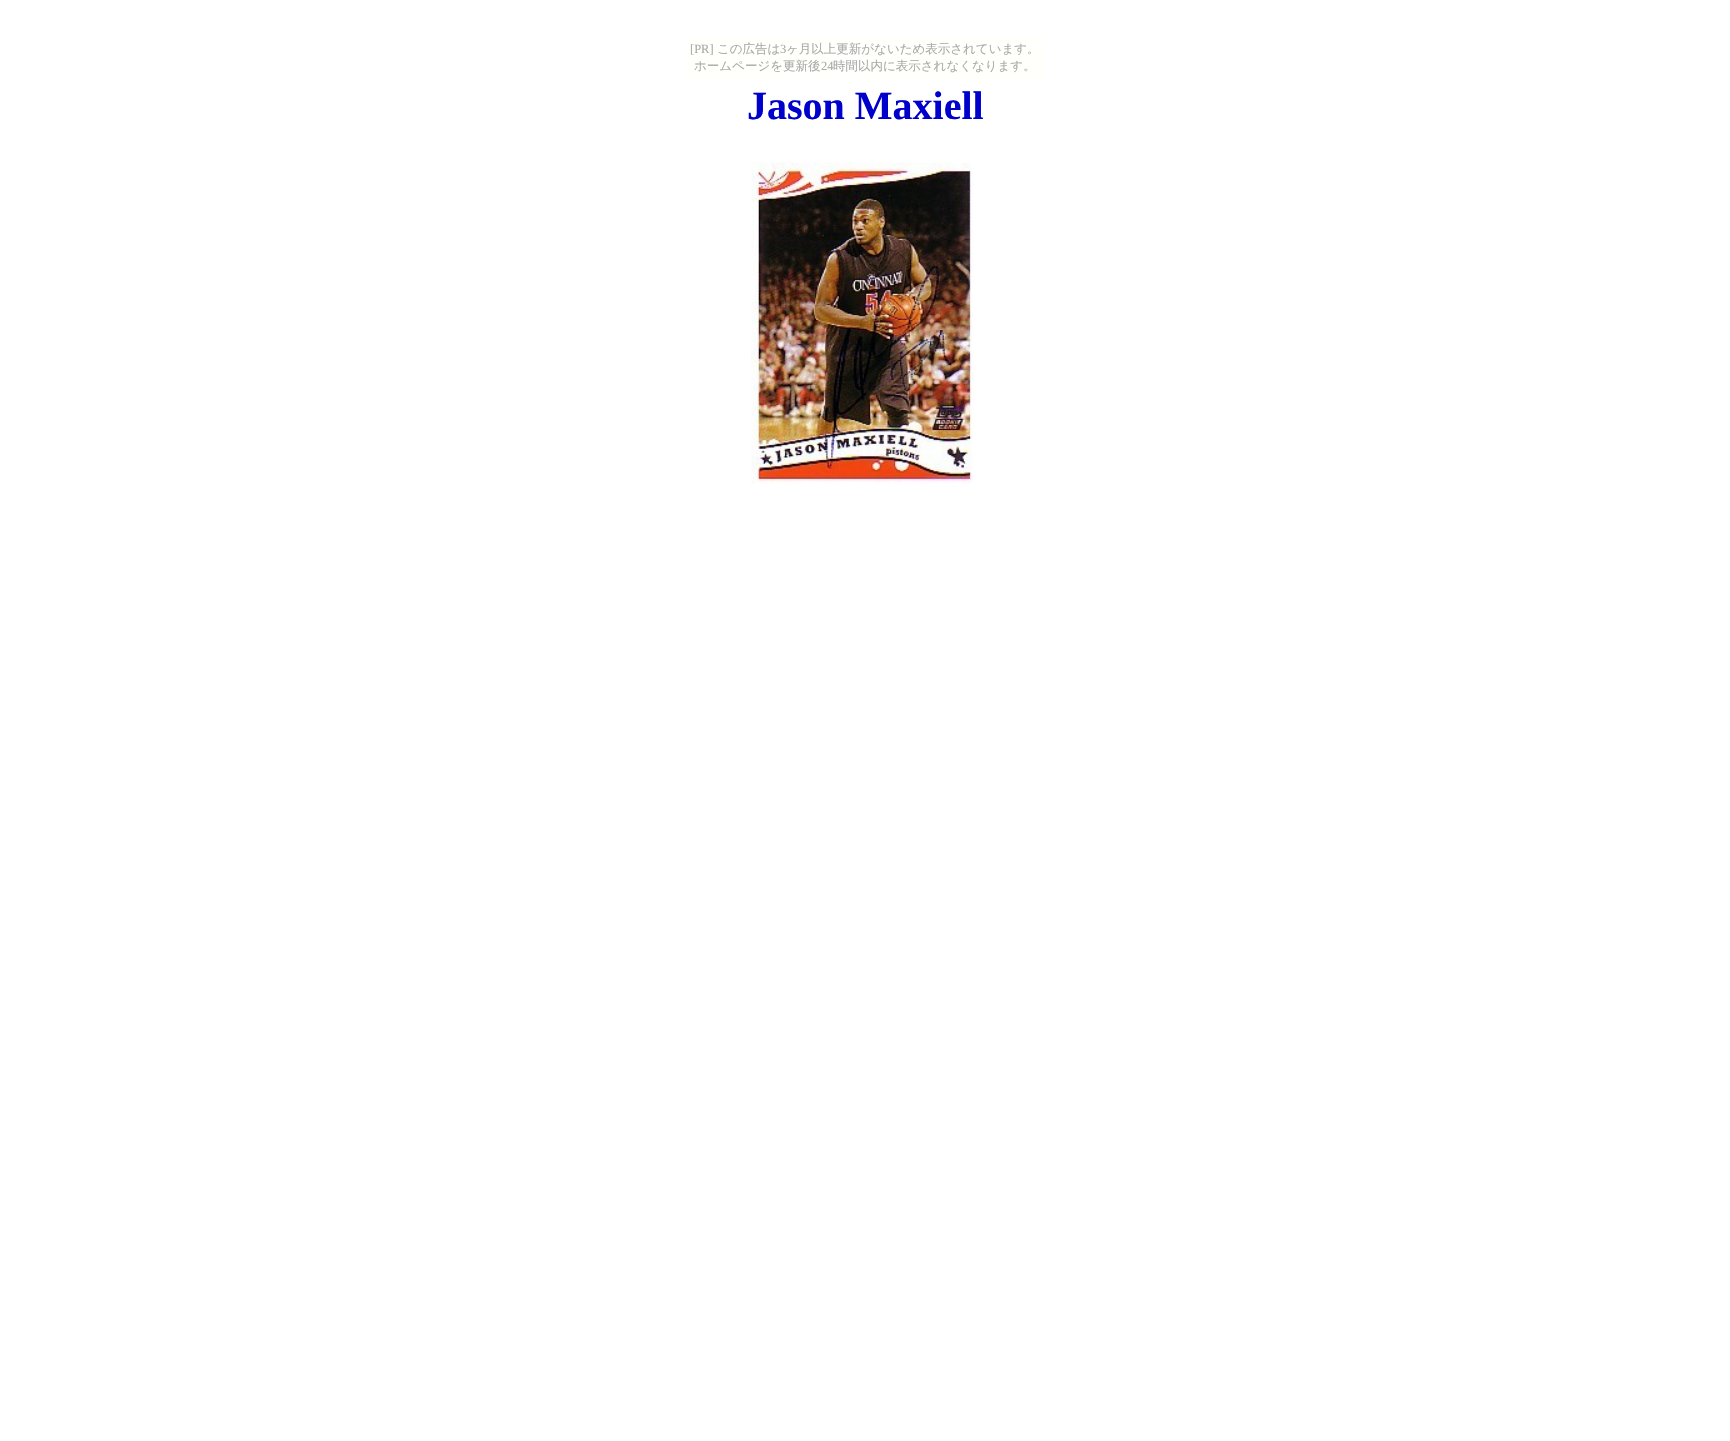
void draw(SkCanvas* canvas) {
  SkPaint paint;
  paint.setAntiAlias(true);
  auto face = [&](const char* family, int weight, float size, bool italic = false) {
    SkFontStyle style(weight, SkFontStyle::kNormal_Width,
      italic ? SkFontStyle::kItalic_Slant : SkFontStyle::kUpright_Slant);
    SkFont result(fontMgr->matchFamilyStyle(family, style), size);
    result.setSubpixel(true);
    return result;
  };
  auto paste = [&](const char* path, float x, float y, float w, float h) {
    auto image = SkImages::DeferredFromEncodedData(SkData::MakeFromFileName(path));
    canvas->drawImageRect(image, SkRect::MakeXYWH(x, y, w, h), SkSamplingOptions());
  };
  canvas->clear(0xffffffff);
  paint.setColor(0xfffffffc);
  canvas->drawRect(SkRect::MakeXYWH(686, 36, 358, 43), paint);
  paste("img/1.png", 751, 162, 223, 322);
  auto f0 = face("Liberation Serif", 400, 12.5f);
  paint.setColor(0xffaaaaaa);
  canvas->drawString("[PR]", 690, 53, f0, paint);
  auto f1 = face("WenQuanYi Zen Hei", 500, 12.5f);
  canvas->drawString("この広告は", 717, 53, f1, paint);
  canvas->drawString("3", 780, 53, f0, paint);
  canvas->drawString("ヶ月以上更新がないため表示されています。", 786, 53, f1, paint);
  canvas->drawString("ホームページを更新後", 694, 70, f1, paint);
  canvas->drawString("24", 821, 70, f0, paint);
  canvas->drawString("時間以内に表示されなくなります。", 833, 70, f1, paint);
  auto f2 = face("Liberation Serif", 700, 40);
  paint.setColor(0xff0000cc);
  canvas->drawString("Jason Maxiell", 747, 119, f2, paint);
}
